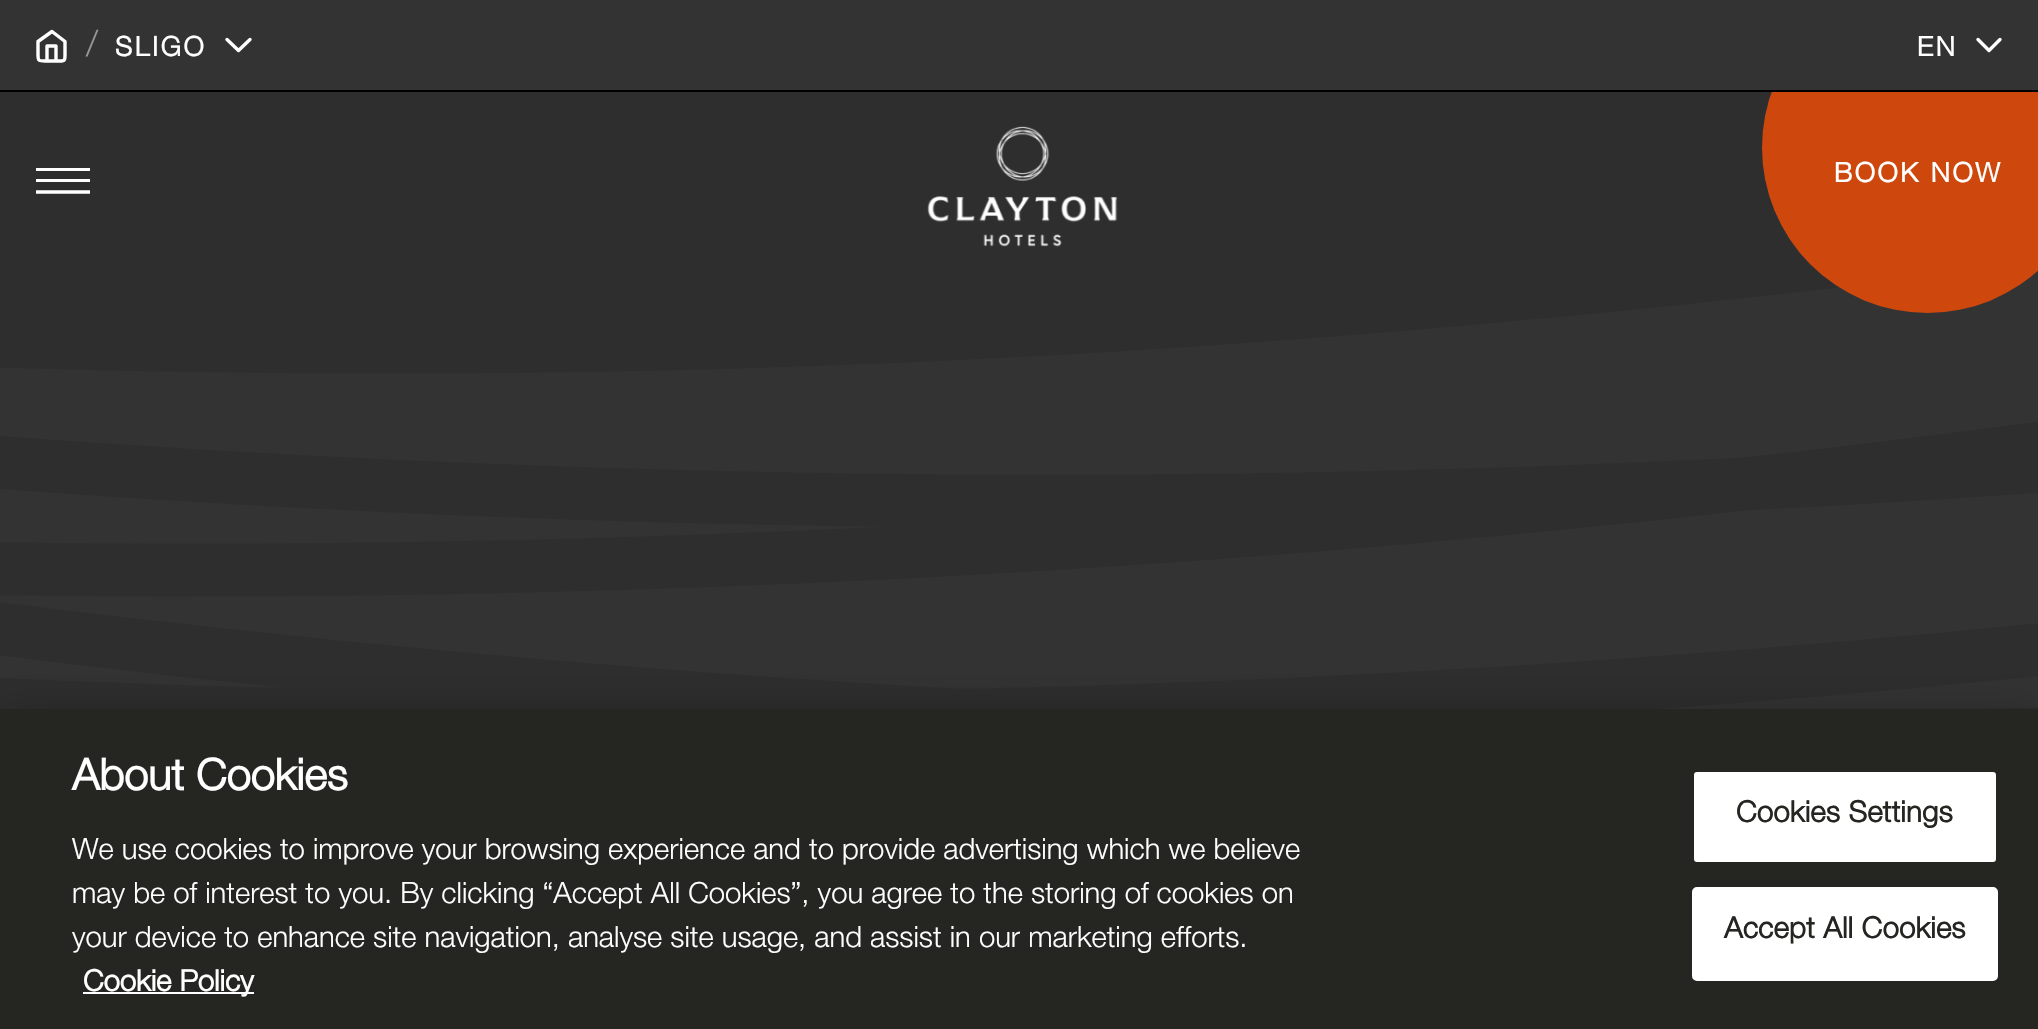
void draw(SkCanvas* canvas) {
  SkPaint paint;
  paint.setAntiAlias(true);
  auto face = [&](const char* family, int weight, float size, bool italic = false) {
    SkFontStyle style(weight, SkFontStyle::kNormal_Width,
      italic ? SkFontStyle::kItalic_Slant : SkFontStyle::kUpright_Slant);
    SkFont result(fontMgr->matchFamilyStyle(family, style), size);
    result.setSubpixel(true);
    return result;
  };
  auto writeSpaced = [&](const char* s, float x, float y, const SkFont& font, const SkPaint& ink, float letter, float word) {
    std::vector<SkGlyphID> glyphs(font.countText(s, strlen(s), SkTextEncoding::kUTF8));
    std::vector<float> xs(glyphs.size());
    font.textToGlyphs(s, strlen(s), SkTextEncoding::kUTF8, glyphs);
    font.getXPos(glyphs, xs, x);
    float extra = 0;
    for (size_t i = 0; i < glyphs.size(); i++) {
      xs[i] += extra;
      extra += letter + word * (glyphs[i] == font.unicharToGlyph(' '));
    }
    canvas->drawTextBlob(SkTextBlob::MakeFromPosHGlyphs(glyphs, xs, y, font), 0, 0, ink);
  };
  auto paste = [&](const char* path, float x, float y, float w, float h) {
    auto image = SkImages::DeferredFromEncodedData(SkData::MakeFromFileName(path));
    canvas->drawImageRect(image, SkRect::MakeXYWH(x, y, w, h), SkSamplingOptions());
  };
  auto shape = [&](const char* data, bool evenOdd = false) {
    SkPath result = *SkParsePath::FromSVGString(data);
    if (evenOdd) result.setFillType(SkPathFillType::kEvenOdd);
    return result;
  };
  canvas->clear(0xff333333);
  paste("img/2.png", 0, 92, 2038, 617);
  paint.setColor(0xffce470c);
  canvas->drawCircle(1927.5f, 147.5f, 165.5f, paint);
  paint.setColor(0xff333333);
  canvas->drawRect(SkRect::MakeXYWH(1772, 0, 266, 90), paint);
  paint.setColor(0xff000000);
  canvas->drawRect(SkRect::MakeXYWH(0, 90, 2038, 2), paint);
  paint.setStroke(true);
  paint.setStrokeWidth(3.4f);
  paint.setStrokeCap(SkPaint::kRound_Cap);
  paint.setStrokeJoin(SkPaint::kRound_Join);
  paint.setColor(0xffffffff);
  canvas->drawPath(shape("M47 61V46H56V61M38 41.5L52 31.5L65 41.5V55C65 61 64.5 61 59 61H45C39 61 38 61 38 55Z"), paint);
  canvas->drawPath(shape("M227 39.5L238.5 50.5L250 39.5"), paint);
  canvas->drawPath(shape("M1978 39.5L1989 50.5L2000 39.5"), paint);
  paint.setStroke(false);
  canvas->drawRect(SkRect::MakeXYWH(36, 168, 54, 3), paint);
  canvas->drawRect(SkRect::MakeXYWH(36, 179, 54, 3), paint);
  paint.setStroke(true);
  paint.setStrokeCap(SkPaint::kButt_Cap);
  paint.setStrokeJoin(SkPaint::kMiter_Join);
  canvas->drawPath(shape("M36 192H90"), paint);
  paste("img/1.png", 927, 126, 191, 121);
  paint.setStroke(false);
  paint.setColor(0x33000000);
  paint.setMaskFilter(SkMaskFilter::MakeBlur(kNormal_SkBlurStyle, 20));
  canvas->drawRect(SkRect::MakeXYWH(0, 709, 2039, 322), paint);
  paint.setMaskFilter(nullptr);
  paint.setColor(0xff252521);
  canvas->drawRect(SkRect::MakeXYWH(0, 709, 2038, 320), paint);
  paint.setColor(0xffffffff);
  canvas->drawRect(SkRect::MakeXYWH(83, 992, 171, 2), paint);
  canvas->drawRoundRect(SkRect::MakeXYWH(1693, 771, 304, 92), 4, 4, paint);
  paint.setStroke(true);
  paint.setStrokeWidth(2);
  paint.setColor(0xff252521);
  canvas->drawRoundRect(SkRect::MakeXYWH(1693, 771, 304, 92), 4, 4, paint);
  paint.setStroke(false);
  paint.setColor(0xffffffff);
  canvas->drawRoundRect(SkRect::MakeXYWH(1693, 888, 304, 92), 4, 4, paint);
  paint.setStroke(true);
  canvas->drawRoundRect(SkRect::MakeXYWH(1693, 888, 304, 92), 4, 4, paint);
  auto f0 = face("Helvetica Neue", 300, 36);
  paint.setStroke(false);
  paint.setColor(0xff969696);
  canvas->drawString("/", 86, 56, f0, paint);
  auto f1 = face("Helvetica Neue", 700, 27);
  paint.setColor(0xffffffff);
  {
    const struct { const char* s; float x, y; } items[] = {
      {"SLIGO", 115, 56},
      {"EN", 1917, 56},
      {"BOOK NOW", 1834, 182},
    };
    for (auto [s, x, y] : items) {
      writeSpaced(s, x, y, f1, paint, 2.75f, 0);
    }
  }
  auto f2 = face("Helvetica Neue", 700, 43.25f);
  canvas->drawString("About Cookies", 72, 790, f2, paint);
  auto f3 = face("Helvetica Neue", 300, 29.25f);
  {
    const struct { const char* s; float x, y; } items[] = {
      {"We use cookies to improve your browsing experience and to provide advertising which we believe", 72, 859},
      {"may be of interest to you. By clicking “Accept All Cookies”, you agree to the storing of cookies on", 72, 903},
      {"your device to enhance site navigation, analyse site usage, and assist in our marketing efforts.", 72, 947},
    };
    for (auto [s, x, y] : items) {
      canvas->drawString(s, x, y, f3, paint);
    }
  }
  auto f4 = face("Helvetica Neue", 700, 29.25f);
  canvas->drawString("Cookie Policy", 83, 991, f4, paint);
  paint.setColor(0xff252521);
  writeSpaced("Cookies Settings", 1736, 822, f4, paint, 0.25f, 0);
  writeSpaced("Accept All Cookies", 1724, 938, f4, paint, 0.25f, 0);
}
